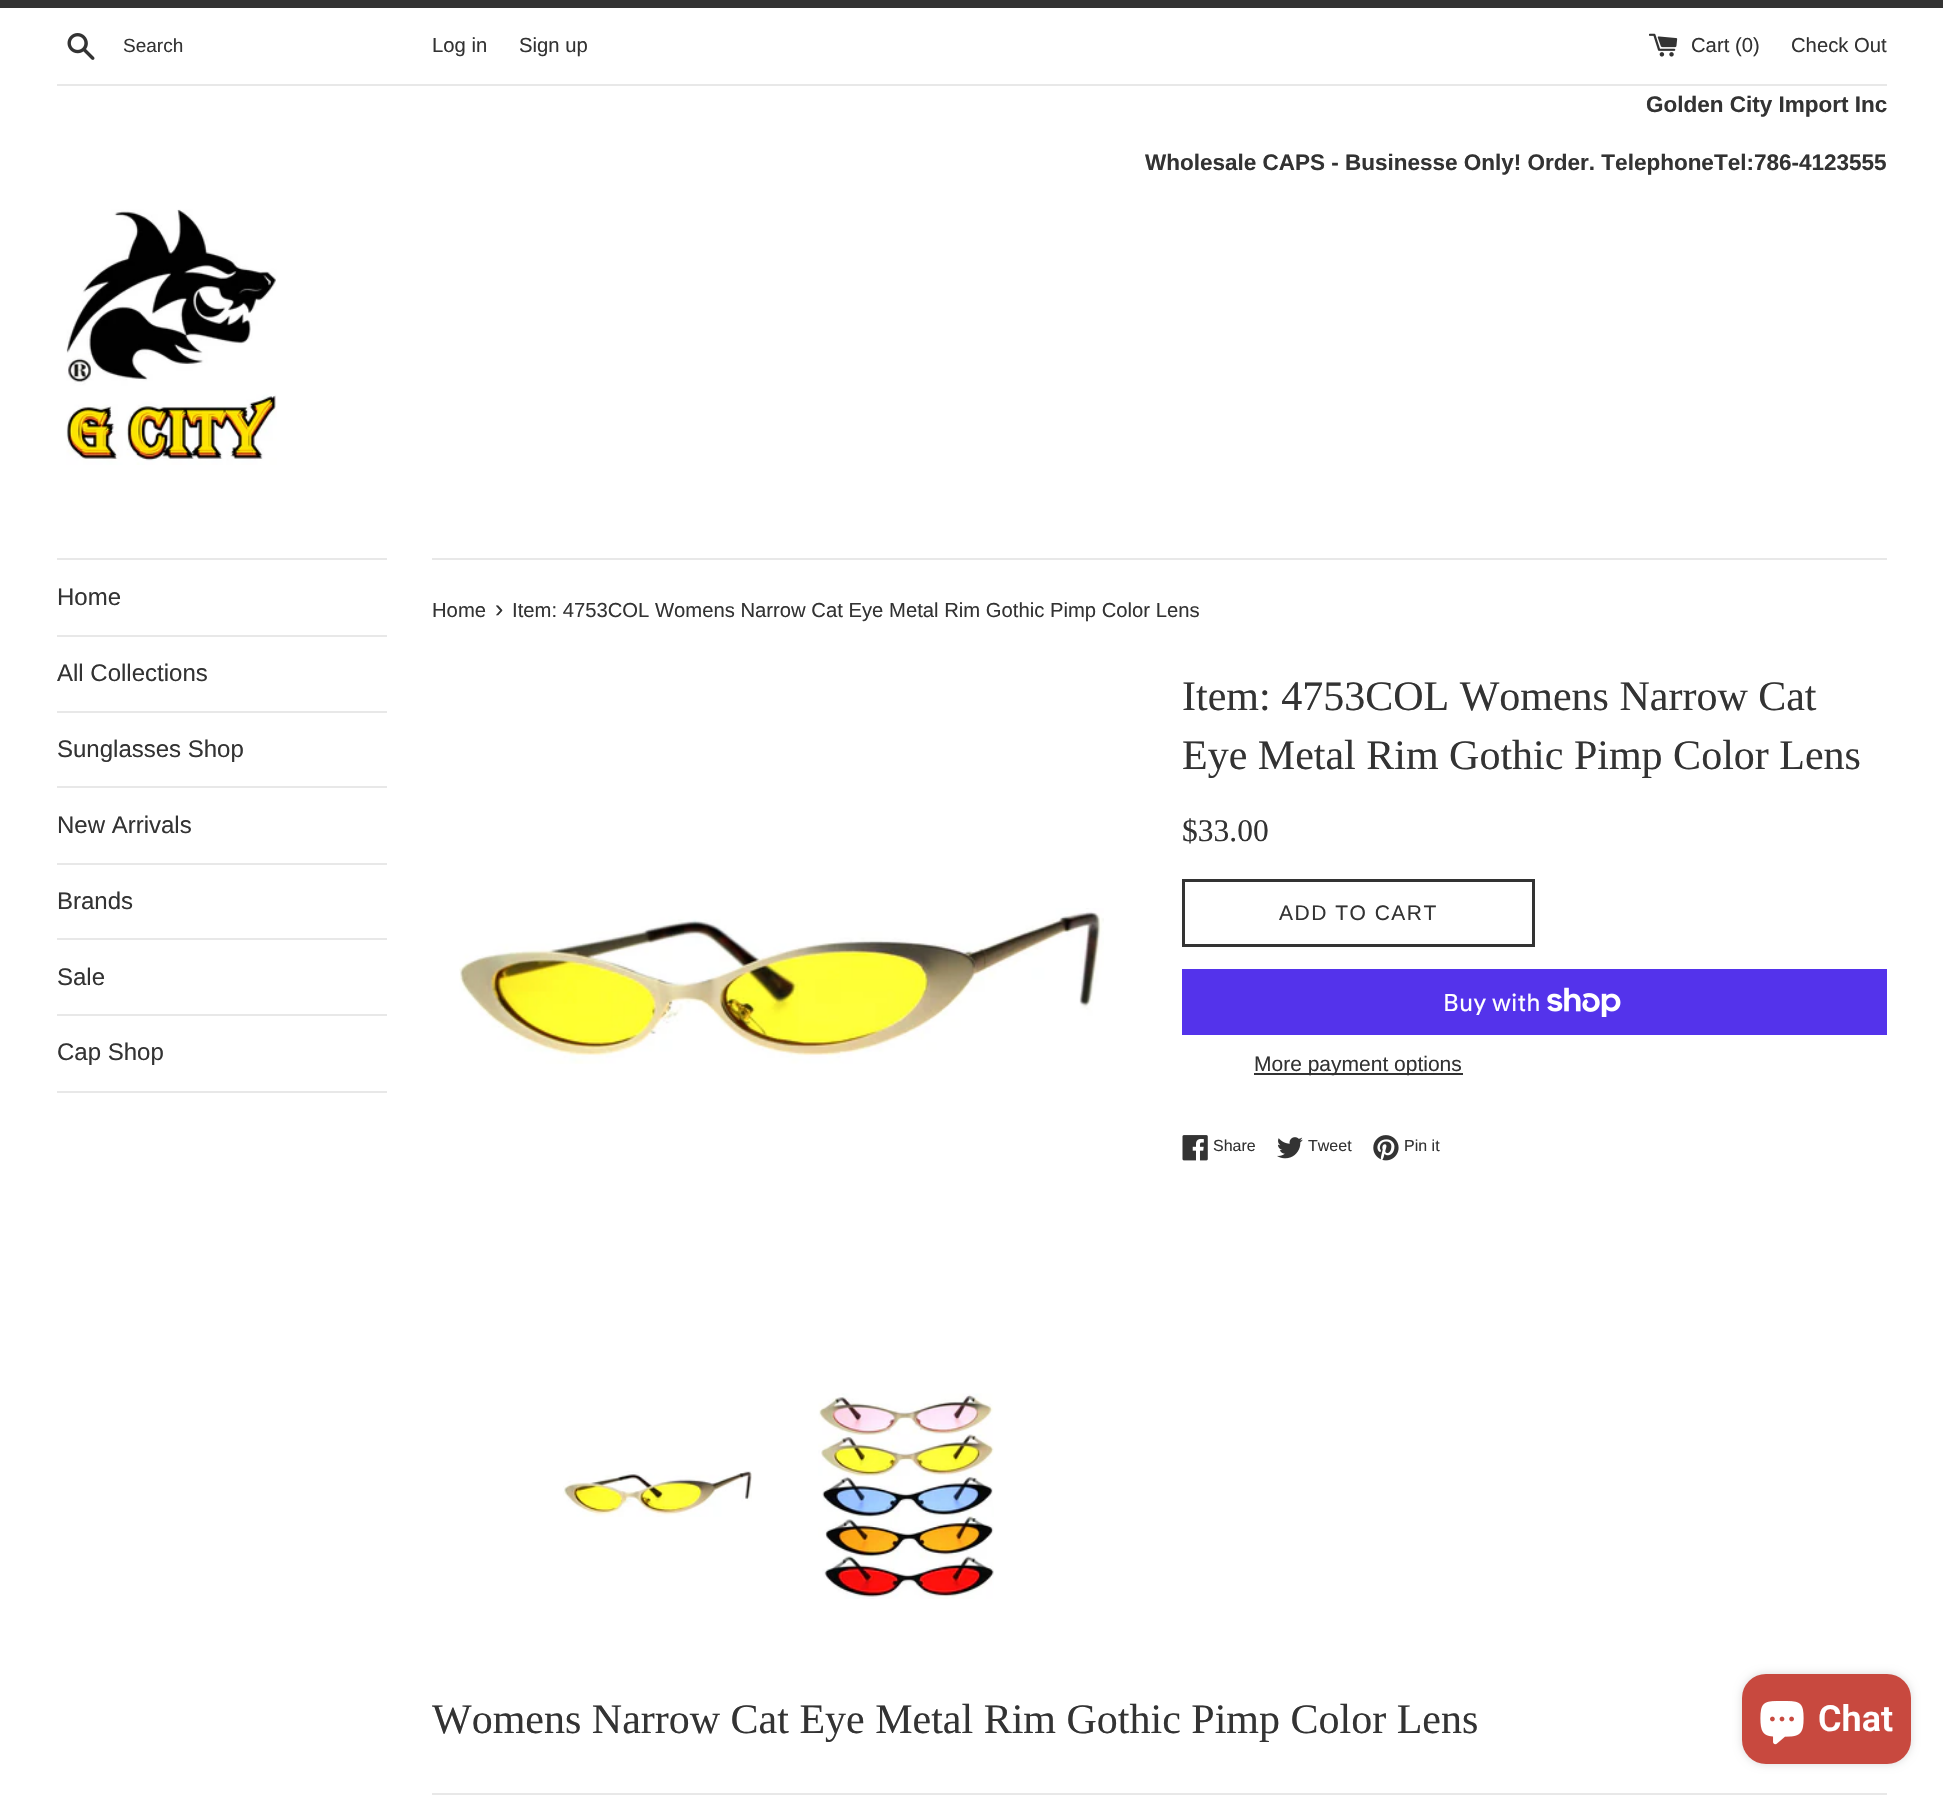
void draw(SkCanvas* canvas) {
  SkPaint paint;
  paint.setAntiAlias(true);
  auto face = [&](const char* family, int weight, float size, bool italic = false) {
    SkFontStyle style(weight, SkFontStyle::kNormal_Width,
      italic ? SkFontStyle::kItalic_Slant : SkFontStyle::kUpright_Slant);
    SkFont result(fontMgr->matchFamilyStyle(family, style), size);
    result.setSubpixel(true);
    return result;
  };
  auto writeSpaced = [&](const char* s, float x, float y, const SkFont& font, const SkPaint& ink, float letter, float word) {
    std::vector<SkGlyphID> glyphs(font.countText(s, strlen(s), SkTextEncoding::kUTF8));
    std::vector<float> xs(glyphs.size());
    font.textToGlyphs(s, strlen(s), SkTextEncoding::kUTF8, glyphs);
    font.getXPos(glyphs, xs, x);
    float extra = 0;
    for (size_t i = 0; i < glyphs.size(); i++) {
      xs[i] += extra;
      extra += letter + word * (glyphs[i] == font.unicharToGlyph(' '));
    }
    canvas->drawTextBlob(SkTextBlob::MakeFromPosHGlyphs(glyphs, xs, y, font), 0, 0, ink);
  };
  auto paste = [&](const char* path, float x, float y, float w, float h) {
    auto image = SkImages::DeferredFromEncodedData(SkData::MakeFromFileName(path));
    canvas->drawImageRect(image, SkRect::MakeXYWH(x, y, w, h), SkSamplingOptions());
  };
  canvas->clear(0xffffffff);
  paint.setColor(0xff333333);
  canvas->drawRect(SkRect::MakeXYWH(0, 0, 1943, 8), paint);
  paste("img/1.png", 67, 33, 28, 27);
  paste("img/2.png", 1649, 33, 29, 24);
  paint.setColor(0xffe8e8e8);
  canvas->drawRect(SkRect::MakeXYWH(57, 84, 1830, 2), paint);
  paste("img/3.png", 66, 209, 211, 256);
  {
    const struct { float x, y, w, h; SkColor color; } items[] = {
      {57, 558, 330, 2, 0xffe8e8e8},
      {57, 635, 330, 2, 0xffe8e8e8},
      {57, 711, 330, 2, 0xffe8e8e8},
      {57, 786, 330, 2, 0xffe8e8e8},
      {57, 863, 330, 2, 0xffe8e8e8},
      {57, 938, 330, 2, 0xffe8e8e8},
      {57, 1014, 330, 2, 0xffe8e8e8},
      {57, 1091, 330, 2, 0xffe8e8e8},
      {432, 558, 1455, 2, 0xffe8e8e8},
    };
    for (auto [x, y, w, h, color] : items) {
      paint.setColor(color);
      canvas->drawRect(SkRect::MakeXYWH(x, y, w, h), paint);
    }
  }
  paste("img/4.png", 459, 908, 645, 156);
  paste("img/5.png", 563, 1471, 189, 46);
  paste("img/6.png", 818, 1393, 176, 206);
  paint.setStroke(true);
  paint.setStrokeWidth(3);
  paint.setColor(0xff333333);
  canvas->drawRect(SkRect::MakeXYWH(1183.5f, 880.5f, 350, 65), paint);
  paint.setStroke(false);
  paint.setColor(0xff5433eb);
  canvas->drawRect(SkRect::MakeXYWH(1182, 969, 705, 66), paint);
  paste("img/7.png", 1547, 987, 74, 30);
  paint.setColor(0xff333333);
  canvas->drawRect(SkRect::MakeXYWH(1254, 1073, 209, 2), paint);
  paste("img/8.png", 1182, 1135, 26, 26);
  paste("img/9.png", 1277, 1137, 26, 22);
  paste("img/10.png", 1373, 1135, 26, 26);
  paint.setColor(0xffe8e8e8);
  canvas->drawRect(SkRect::MakeXYWH(432, 1793, 1455, 2), paint);
  paint.setColor(0x26000000);
  paint.setMaskFilter(SkMaskFilter::MakeBlur(kNormal_SkBlurStyle, 4));
  canvas->drawRoundRect(SkRect::MakeXYWH(1742, 1674, 169, 90), 24, 24, paint);
  paint.setMaskFilter(nullptr);
  paint.setColor(0xffc8493f);
  canvas->drawRoundRect(SkRect::MakeXYWH(1742, 1674, 169, 90), 24, 24, paint);
  paste("img/11.png", 1760, 1701, 44, 44);
  auto f0 = face("Liberation Sans", 400, 19);
  paint.setColor(0xff333333);
  canvas->drawString("Search", 123, 52, f0, paint);
  auto f1 = face("Liberation Sans", 400, 20.25f);
  {
    const struct { const char* s; float x, y; } items[] = {
      {"Log in", 432, 52},
      {"Sign up", 519, 52},
      {"Cart (0)", 1691, 52},
      {"Check Out", 1791, 52},
    };
    for (auto [s, x, y] : items) {
      canvas->drawString(s, x, y, f1, paint);
    }
  }
  auto f2 = face("Liberation Sans", 700, 22.5f);
  canvas->drawString("Golden City Import Inc", 1646, 112, f2, paint);
  canvas->drawString("Wholesale CAPS - Businesse Only! Order. TelephoneTel:786-4123555", 1145, 170, f2, paint);
  auto f3 = face("Liberation Sans", 400, 24);
  {
    const struct { const char* s; float x, y; } items[] = {
      {"Home", 57, 605},
      {"All Collections", 57, 681},
      {"Sunglasses Shop", 57, 757},
      {"New Arrivals", 57, 833},
      {"Brands", 57, 909},
      {"Sale", 57, 985},
      {"Cap Shop", 57, 1060},
    };
    for (auto [s, x, y] : items) {
      canvas->drawString(s, x, y, f3, paint);
    }
  }
  canvas->drawString("Home", 432, 617, f1, paint);
  auto f4 = face("Liberation Sans", 400, 25);
  canvas->drawString("›", 495, 617, f4, paint);
  canvas->drawString("Item: 4753COL Womens Narrow Cat Eye Metal Rim Gothic Pimp Color Lens", 512, 617, f1, paint);
  auto f5 = face("Liberation Serif", 400, 42);
  canvas->drawString("Item: 4753COL Womens Narrow Cat", 1182, 710, f5, paint);
  canvas->drawString("Eye Metal Rim Gothic Pimp Color Lens", 1182, 769, f5, paint);
  auto f6 = face("Liberation Serif", 400, 31.5f);
  canvas->drawString("$33.00", 1182, 841, f6, paint);
  auto f7 = face("Liberation Sans", 400, 21);
  writeSpaced("ADD TO CART", 1279, 920, f7, paint, 1.5f, 0);
  auto f8 = face("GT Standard", 400, 24);
  paint.setColor(0xffffffff);
  canvas->drawString("Buy with", 1443, 1011, f8, paint);
  paint.setColor(0xff333333);
  canvas->drawString("More payment options", 1254, 1071, f7, paint);
  auto f9 = face("Liberation Sans", 400, 16);
  {
    const struct { const char* s; float x, y; } items[] = {
      {"Share", 1213, 1151},
      {"Tweet", 1308, 1151},
      {"Pin it", 1404, 1151},
    };
    for (auto [s, x, y] : items) {
      canvas->drawString(s, x, y, f9, paint);
    }
  }
  canvas->drawString("Womens Narrow Cat Eye Metal Rim Gothic Pimp Color Lens", 432, 1733, f5, paint);
  auto f10 = face("Roboto", 600, 36);
  paint.setColor(0xffffffff);
  canvas->drawString("Chat", 1818, 1731, f10, paint);
}
